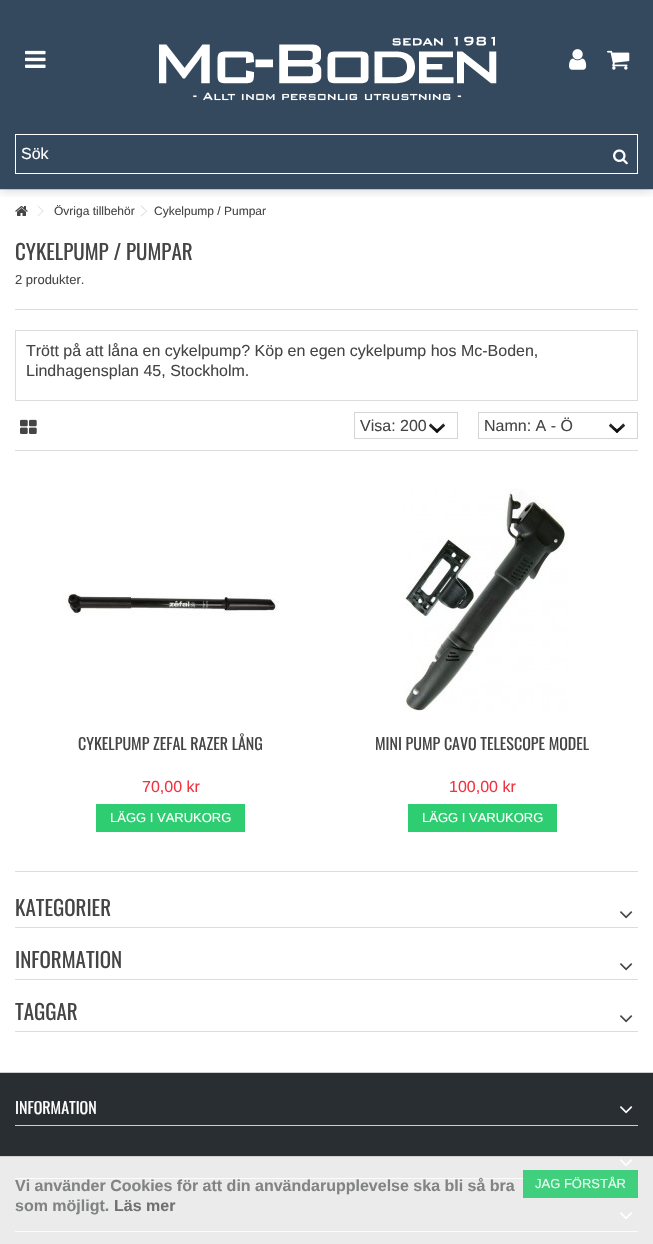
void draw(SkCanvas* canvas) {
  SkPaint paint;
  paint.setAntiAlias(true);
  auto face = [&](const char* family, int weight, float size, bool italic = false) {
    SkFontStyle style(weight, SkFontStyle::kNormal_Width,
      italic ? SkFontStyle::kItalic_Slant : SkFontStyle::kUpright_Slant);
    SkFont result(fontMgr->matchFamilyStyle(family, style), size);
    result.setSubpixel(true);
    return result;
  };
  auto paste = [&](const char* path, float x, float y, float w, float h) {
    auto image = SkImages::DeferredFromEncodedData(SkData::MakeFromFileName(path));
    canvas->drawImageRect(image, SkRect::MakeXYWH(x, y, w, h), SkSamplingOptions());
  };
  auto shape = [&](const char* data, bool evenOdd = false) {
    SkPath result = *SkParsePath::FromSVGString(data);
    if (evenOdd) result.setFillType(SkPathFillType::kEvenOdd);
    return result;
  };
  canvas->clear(0xff34495e);
  paint.setColor(0xffd6d4d4);
  canvas->drawRect(SkRect::MakeXYWH(0, 189, 653, 1), paint);
  paint.setColor(0xffffffff);
  canvas->drawRect(SkRect::MakeXYWH(0, 190, 653, 882), paint);
  paste("img/6.png", 15, 206, 13, 10);
  paint.setColor(0xffdddddd);
  canvas->drawPath(shape("M38 205.5L43.5 211L43 211.5L37.5 206Z"), paint);
  canvas->drawPath(shape("M141.5 205.5L147 211L146.5 211.5L140.5 206Z"), paint);
  canvas->save();
  canvas->clipRect(SkRect::MakeXYWH(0, 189, 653, 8));
  paint.setColor(0x26000000);
  paint.setMaskFilter(SkMaskFilter::MakeBlur(kNormal_SkBlurStyle, 5));
  canvas->drawRect(SkRect::MakeXYWH(0, 121, 653, 70), paint);
  paint.setMaskFilter(nullptr);
  canvas->restore();
  paint.setColor(0xff34495e);
  canvas->drawRect(SkRect::MakeXYWH(1, 117, 651, 2), paint);
  paste("img/1.png", 25, 50, 21, 18);
  paste("img/2.png", 159, 36, 338, 65);
  paste("img/3.png", 569, 49, 18, 21);
  paste("img/4.png", 607, 50, 23, 20);
  paint.setStroke(true);
  paint.setStrokeWidth(1);
  paint.setColor(0xffffffff);
  canvas->drawRect(SkRect::MakeXYWH(15.5f, 134.5f, 622, 39), paint);
  paste("img/5.png", 613, 149, 15, 16);
  paint.setStroke(false);
  paint.setColor(0xffdddddd);
  canvas->drawPath(shape("M43 210.5L43.5 211L38 216.5L37.5 216Z"), paint);
  canvas->drawPath(shape("M146.5 210.5L147 211L141.5 216.5L140.5 216Z"), paint);
  canvas->drawRect(SkRect::MakeXYWH(15, 309, 623, 1), paint);
  paint.setStroke(true);
  canvas->drawRect(SkRect::MakeXYWH(15.5f, 330.5f, 622, 70), paint);
  paint.setStroke(false);
  canvas->drawRect(SkRect::MakeXYWH(15, 450, 623, 1), paint);
  paste("img/7.png", 20, 419, 17, 15);
  paste("img/8.png", 429, 423, 16, 10);
  paint.setStroke(true);
  paint.setColor(0xffd6d4d4);
  canvas->drawRect(SkRect::MakeXYWH(354.5f, 412.5f, 103, 26), paint);
  paste("img/8.png", 609, 423, 16, 10);
  canvas->drawRect(SkRect::MakeXYWH(478.5f, 412.5f, 159, 26), paint);
  paste("img/9.png", 63, 592, 216, 24);
  paint.setStroke(false);
  paint.setColor(0xff2ecd71);
  canvas->drawRect(SkRect::MakeXYWH(96, 804, 149, 28), paint);
  paste("img/10.png", 403, 488, 165, 225);
  {
    const struct { float x, y, w, h; SkColor color; } items[] = {
      {408, 804, 149, 28, 0xff2ecd71},
      {15, 871, 623, 1, 0xffdddddd},
      {15, 927, 623, 1, 0xffdddddd},
    };
    for (auto [x, y, w, h, color] : items) {
      paint.setColor(color);
      canvas->drawRect(SkRect::MakeXYWH(x, y, w, h), paint);
    }
  }
  paste("img/11.png", 620, 911, 13, 8);
  canvas->drawRect(SkRect::MakeXYWH(15, 979, 623, 1), paint);
  paste("img/11.png", 620, 963, 13, 8);
  canvas->drawRect(SkRect::MakeXYWH(15, 1031, 623, 1), paint);
  paste("img/11.png", 620, 1015, 13, 8);
  {
    const struct { float x, y, w, h; SkColor color; } items[] = {
      {0, 1073, 653, 171, 0xff292e32},
      {0, 1072, 653, 1, 0xffcecece},
      {15, 1125, 623, 1, 0xffcecece},
    };
    for (auto [x, y, w, h, color] : items) {
      paint.setColor(color);
      canvas->drawRect(SkRect::MakeXYWH(x, y, w, h), paint);
    }
  }
  paste("img/12.png", 620, 1106, 13, 8);
  canvas->drawRect(SkRect::MakeXYWH(15, 1178, 623, 1), paint);
  paste("img/12.png", 620, 1159, 13, 8);
  canvas->drawRect(SkRect::MakeXYWH(15, 1231, 623, 1), paint);
  paste("img/12.png", 620, 1212, 13, 8);
  {
    const struct { float x, y, w, h; SkColor color; } items[] = {
      {0, 1156, 653, 88, 0xe6ffffff},
      {0, 1156, 653, 1, 0xe6cecece},
      {523, 1170, 115, 28, 0xe62ecc71},
    };
    for (auto [x, y, w, h, color] : items) {
      paint.setColor(color);
      canvas->drawRect(SkRect::MakeXYWH(x, y, w, h), paint);
    }
  }
  auto f0 = face("Liberation Sans", 400, 16);
  paint.setColor(0xffffffff);
  canvas->drawString("Sök", 21, 159, f0, paint);
  auto f1 = face("Liberation Sans", 400, 12);
  paint.setColor(0xff454545);
  canvas->drawString("Övriga tillbehör", 54, 215, f1, paint);
  canvas->drawString("Cykelpump / Pumpar", 154, 215, f1, paint);
  auto f2 = face("Oswald", 400, 21);
  canvas->drawString("CYKELPUMP / PUMPAR", 15, 260, f2, paint);
  auto f3 = face("Liberation Sans", 400, 13);
  canvas->drawString("2 produkter.", 15, 284, f3, paint);
  {
    const struct { const char* s; float x, y; } items[] = {
      {"Trött på att låna en cykelpump? Köp en egen cykelpump hos Mc-Boden,", 26, 356},
      {"Lindhagensplan 45, Stockholm.", 26, 376},
      {"Visa: 200", 360, 431},
      {"Namn: A - Ö", 484, 431},
    };
    for (auto [s, x, y] : items) {
      canvas->drawString(s, x, y, f0, paint);
    }
  }
  auto f4 = face("Oswald", 400, 16);
  canvas->drawString("CYKELPUMP ZEFAL RAZER LÅNG", 78, 750, f4, paint);
  paint.setColor(0xfff13340);
  canvas->drawString("70,00 kr", 142, 792, f0, paint);
  paint.setColor(0xffffffff);
  canvas->drawString("LÄGG I VARUKORG", 110, 822, f3, paint);
  paint.setColor(0xff454545);
  canvas->drawString("MINI PUMP CAVO TELESCOPE MODEL", 375, 750, f4, paint);
  paint.setColor(0xfff13340);
  canvas->drawString("100,00 kr", 449, 792, f0, paint);
  paint.setColor(0xffffffff);
  canvas->drawString("LÄGG I VARUKORG", 422, 822, f3, paint);
  paint.setColor(0xff454545);
  {
    const struct { const char* s; float x, y; } items[] = {
      {"KATEGORIER", 15, 916},
      {"INFORMATION", 15, 968},
      {"TAGGAR", 15, 1020},
    };
    for (auto [s, x, y] : items) {
      canvas->drawString(s, x, y, f2, paint);
    }
  }
  paint.setColor(0xffffffff);
  canvas->drawString("INFORMATION", 15, 1114, f4, paint);
  auto f5 = face("Liberation Sans", 700, 16);
  paint.setColor(0xff828383);
  canvas->drawString("Vi använder Cookies för att din användarupplevelse ska bli så bra", 15, 1191, f5, paint);
  canvas->drawString("som möjligt.", 15, 1211, f5, paint);
  paint.setColor(0xff6f7070);
  canvas->drawString("Läs mer", 114, 1211, f5, paint);
  paint.setColor(0xffecfaf2);
  canvas->drawString("JAG FÖRSTÅR", 535, 1188, f3, paint);
}
